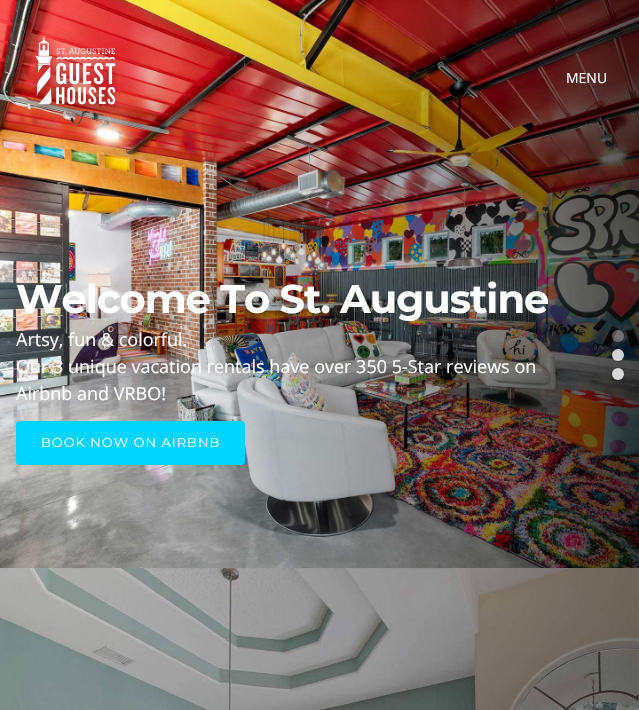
void draw(SkCanvas* canvas) {
  SkPaint paint;
  paint.setAntiAlias(true);
  auto face = [&](const char* family, int weight, float size, bool italic = false) {
    SkFontStyle style(weight, SkFontStyle::kNormal_Width,
      italic ? SkFontStyle::kItalic_Slant : SkFontStyle::kUpright_Slant);
    SkFont result(fontMgr->matchFamilyStyle(family, style), size);
    result.setSubpixel(true);
    return result;
  };
  auto writeSpaced = [&](const char* s, float x, float y, const SkFont& font, const SkPaint& ink, float letter, float word) {
    std::vector<SkGlyphID> glyphs(font.countText(s, strlen(s), SkTextEncoding::kUTF8));
    std::vector<float> xs(glyphs.size());
    font.textToGlyphs(s, strlen(s), SkTextEncoding::kUTF8, glyphs);
    font.getXPos(glyphs, xs, x);
    float extra = 0;
    for (size_t i = 0; i < glyphs.size(); i++) {
      xs[i] += extra;
      extra += letter + word * (glyphs[i] == font.unicharToGlyph(' '));
    }
    canvas->drawTextBlob(SkTextBlob::MakeFromPosHGlyphs(glyphs, xs, y, font), 0, 0, ink);
  };
  auto paste = [&](const char* path, float x, float y, float w, float h) {
    auto image = SkImages::DeferredFromEncodedData(SkData::MakeFromFileName(path));
    canvas->drawImageRect(image, SkRect::MakeXYWH(x, y, w, h), SkSamplingOptions());
  };
  canvas->clear(0xffffffff);
  paste("img/2.png", 0, 0, 639, 568);
  paste("img/1.png", 32, 35, 88, 75);
  paint.setColor(0xff00d5ff);
  canvas->drawRoundRect(SkRect::MakeXYWH(16, 421, 229, 44), 4, 4, paint);
  paste("img/3.png", 0, 568, 639, 142);
  paint.setColor(0x4dffffff);
  canvas->drawCircle(618, 336, 6, paint);
  paint.setStroke(true);
  paint.setStrokeWidth(1);
  paint.setColor(0x0f000000);
  canvas->drawRect(SkRect::MakeXYWH(611.5f, 348.5f, 13, 13), paint);
  paint.setStroke(false);
  paint.setColor(0xccffffff);
  canvas->drawCircle(618, 355, 6, paint);
  paint.setStroke(true);
  paint.setColor(0x0f000000);
  canvas->drawRect(SkRect::MakeXYWH(611.5f, 367.5f, 13, 13), paint);
  paint.setStroke(false);
  paint.setColor(0xccffffff);
  canvas->drawCircle(618, 374, 6, paint);
  auto f0 = face("Open Sans", 400, 14);
  paint.setColor(0xffffffff);
  canvas->drawString("MENU", 566, 83, f0, paint);
  auto f1 = face("Montserrat", 700, 40);
  writeSpaced("Welcome To St. Augustine", 16, 313, f1, paint, -1, 0);
  auto f2 = face("Open Sans", 400, 18);
  {
    const struct { const char* s; float x, y; } items[] = {
      {"Artsy, fun & colorful.", 16, 346},
      {"Our 3 unique vacation rentals have over 350 5-Star reviews on", 16, 373},
      {"Airbnb and VRBO!", 16, 400},
    };
    for (auto [s, x, y] : items) {
      canvas->drawString(s, x, y, f2, paint);
    }
  }
  auto f3 = face("Montserrat", 400, 13);
  writeSpaced("BOOK NOW ON AIRBNB", 41, 447, f3, paint, 1, 0);
}
